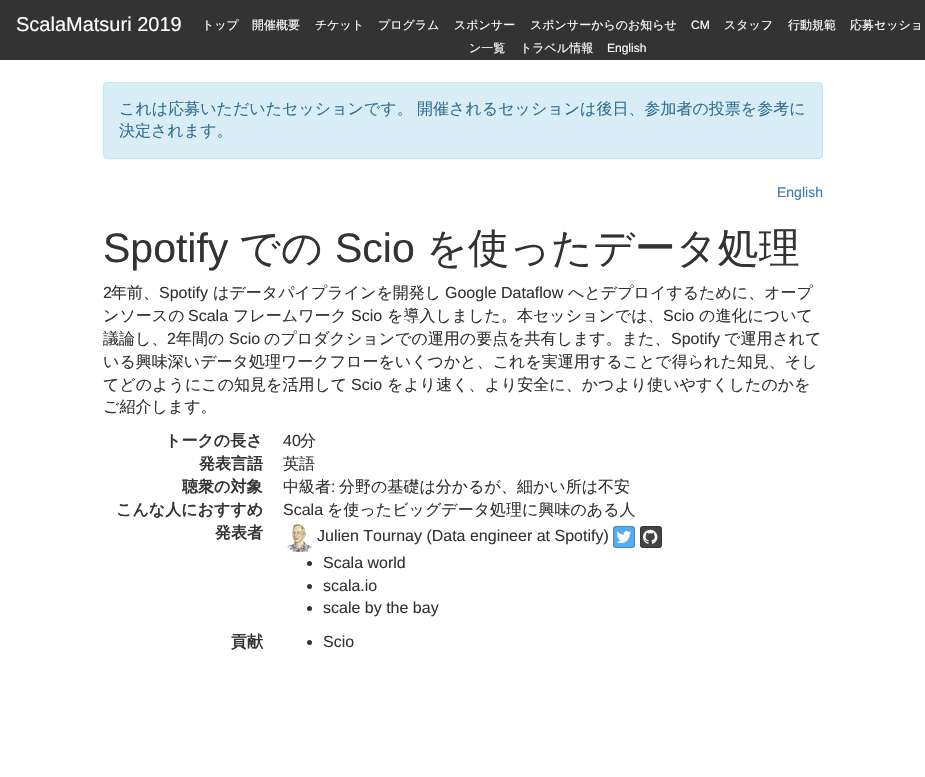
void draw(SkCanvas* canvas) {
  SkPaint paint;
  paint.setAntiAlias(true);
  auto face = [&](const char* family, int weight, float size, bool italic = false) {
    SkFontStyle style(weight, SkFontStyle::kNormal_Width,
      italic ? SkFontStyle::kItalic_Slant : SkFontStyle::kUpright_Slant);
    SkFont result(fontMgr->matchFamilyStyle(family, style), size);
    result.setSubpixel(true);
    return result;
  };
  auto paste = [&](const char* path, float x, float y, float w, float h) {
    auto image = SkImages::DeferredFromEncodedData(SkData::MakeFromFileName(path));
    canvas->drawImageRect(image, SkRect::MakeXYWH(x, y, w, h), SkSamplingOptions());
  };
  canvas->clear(0xffffffff);
  paint.setColor(0xff333333);
  canvas->drawRect(SkRect::MakeXYWH(0, 0, 925, 60), paint);
  paint.setColor(0xffd9edf7);
  canvas->drawRoundRect(SkRect::MakeXYWH(103.5f, 82.5f, 719, 76), 3.5f, 3.5f, paint);
  paint.setStroke(true);
  paint.setStrokeWidth(1);
  paint.setColor(0xffbce8f1);
  canvas->drawRoundRect(SkRect::MakeXYWH(103.5f, 82.5f, 719, 76), 3.5f, 3.5f, paint);
  paste("img/1.png", 287, 523, 25, 29);
  paint.setStroke(false);
  paint.setColor(0xff55acee);
  canvas->drawRoundRect(SkRect::MakeXYWH(613, 526, 22, 22), 3, 3, paint);
  paint.setStroke(true);
  paint.setColor(0x33000000);
  canvas->drawRoundRect(SkRect::MakeXYWH(613.5f, 526.5f, 21, 21), 2.5f, 2.5f, paint);
  paste("img/2.png", 616, 531, 15, 12);
  paint.setStroke(false);
  paint.setColor(0xff444444);
  canvas->drawRoundRect(SkRect::MakeXYWH(640, 526, 22, 22), 3, 3, paint);
  paint.setStroke(true);
  paint.setColor(0x33000000);
  canvas->drawRoundRect(SkRect::MakeXYWH(640.5f, 526.5f, 21, 21), 2.5f, 2.5f, paint);
  paste("img/3.png", 643, 529, 15, 15);
  paint.setStroke(false);
  paint.setColor(0xff333333);
  canvas->drawCircle(309.5f, 563.5f, 2.5f, paint);
  canvas->drawCircle(309.5f, 586.5f, 2.5f, paint);
  canvas->drawCircle(309.5f, 608.5f, 2.5f, paint);
  canvas->drawCircle(309.5f, 642.5f, 2.5f, paint);
  auto f0 = face("Liberation Sans", 400, 20);
  paint.setColor(0xffffffff);
  canvas->drawString("ScalaMatsuri 2019", 16, 31, f0, paint);
  auto f1 = face("WenQuanYi Zen Hei", 500, 12);
  {
    const struct { const char* s; float x, y; } items[] = {
      {"トップ", 202, 29},
      {"開催概要", 252, 29},
      {"チケット", 315, 29},
      {"プログラム", 378, 29},
      {"スポンサー", 454, 29},
      {"スポンサーからのお知らせ", 530, 29},
    };
    for (auto [s, x, y] : items) {
      canvas->drawString(s, x, y, f1, paint);
    }
  }
  auto f2 = face("Liberation Sans", 400, 12);
  canvas->drawString("CM", 691, 29, f2, paint);
  {
    const struct { const char* s; float x, y; } items[] = {
      {"スタッフ", 724, 29},
      {"行動規範", 788, 29},
      {"応募セッショ", 850, 29},
      {"ン一覧", 469, 52},
      {"トラベル情報", 520, 52},
    };
    for (auto [s, x, y] : items) {
      canvas->drawString(s, x, y, f1, paint);
    }
  }
  canvas->drawString("English", 607, 52, f2, paint);
  auto f3 = face("WenQuanYi Zen Hei", 500, 16);
  paint.setColor(0xff31708f);
  {
    const struct { const char* s; float x, y; } items[] = {
      {"これは応募いただいたセッションです。", 119, 114},
      {"開催されるセッションは後日、参加者の投票を参考に", 417, 114},
      {"決定されます。", 119, 136},
    };
    for (auto [s, x, y] : items) {
      canvas->drawString(s, x, y, f3, paint);
    }
  }
  auto f4 = face("Liberation Sans", 400, 14);
  paint.setColor(0xff337ab7);
  canvas->drawString("English", 777, 197, f4, paint);
  auto f5 = face("Liberation Sans", 400, 41);
  paint.setColor(0xff333333);
  canvas->drawString("Spotify", 103, 262, f5, paint);
  auto f6 = face("WenQuanYi Zen Hei", 500, 41);
  canvas->drawString("での", 239, 262, f6, paint);
  canvas->drawString("Scio", 335, 262, f5, paint);
  canvas->drawString("を使ったデータ処理", 426, 262, f6, paint);
  auto f7 = face("Liberation Sans", 400, 16);
  canvas->drawString("2", 103, 298, f7, paint);
  canvas->drawString("年前、", 111, 298, f3, paint);
  canvas->drawString("Spotify", 159, 298, f7, paint);
  canvas->drawString("はデータパイプラインを開発し", 213, 298, f3, paint);
  canvas->drawString("Google Dataflow", 445, 298, f7, paint);
  canvas->drawString("へとデプロイするために、オープ", 568, 298, f3, paint);
  canvas->drawString("ンソースの", 103, 321, f3, paint);
  canvas->drawString("Scala", 188, 321, f7, paint);
  canvas->drawString("フレームワーク", 233, 321, f3, paint);
  canvas->drawString("Scio", 351, 321, f7, paint);
  canvas->drawString("を導入しました。本セッションでは、", 387, 321, f3, paint);
  canvas->drawString("Scio", 663, 321, f7, paint);
  canvas->drawString("の進化について", 699, 321, f3, paint);
  canvas->drawString("議論し、", 103, 344, f3, paint);
  canvas->drawString("2", 167, 344, f7, paint);
  canvas->drawString("年間の", 176, 344, f3, paint);
  canvas->drawString("Scio", 229, 344, f7, paint);
  canvas->drawString("のプロダクションでの運用の要点を共有します。また、", 264, 344, f3, paint);
  canvas->drawString("Spotify", 671, 344, f7, paint);
  {
    const struct { const char* s; float x, y; } items[] = {
      {"で運用されて", 724, 344},
      {"いる興味深いデータ処理ワークフローをいくつかと、これを実運用することで得られた知見、そし", 103, 367},
      {"てどのようにこの知見を活用して", 103, 390},
    };
    for (auto [s, x, y] : items) {
      canvas->drawString(s, x, y, f3, paint);
    }
  }
  canvas->drawString("Scio", 351, 390, f7, paint);
  canvas->drawString("をより速く、より安全に、かつより使いやすくしたのかを", 387, 390, f3, paint);
  canvas->drawString("ご紹介します。", 103, 412, f3, paint);
  auto f8 = face("WenQuanYi Zen Hei", 700, 16);
  canvas->drawString("トークの長さ", 165, 446, f8, paint);
  canvas->drawString("40", 283, 446, f7, paint);
  canvas->drawString("分", 300, 446, f3, paint);
  canvas->drawString("発表言語", 199, 469, f8, paint);
  canvas->drawString("英語", 283, 469, f3, paint);
  canvas->drawString("聴衆の対象", 182, 492, f8, paint);
  canvas->drawString("中級者", 283, 492, f3, paint);
  canvas->drawString(":", 331, 492, f7, paint);
  canvas->drawString("分野の基礎は分かるが、細かい所は不安", 339, 492, f3, paint);
  canvas->drawString("こんな人におすすめ", 116, 515, f8, paint);
  canvas->drawString("Scala", 283, 515, f7, paint);
  canvas->drawString("を使ったビッグデータ処理に興味のある人", 327, 515, f3, paint);
  canvas->drawString("発表者", 215, 538, f8, paint);
  {
    const struct { const char* s; float x, y; } items[] = {
      {"Julien Tournay (Data engineer at Spotify)", 317, 541},
      {"Scala world", 323, 568},
      {"scala.io", 323, 591},
      {"scale by the bay", 323, 613},
    };
    for (auto [s, x, y] : items) {
      canvas->drawString(s, x, y, f7, paint);
    }
  }
  canvas->drawString("貢献", 231, 647, f8, paint);
  canvas->drawString("Scio", 323, 647, f7, paint);
}
